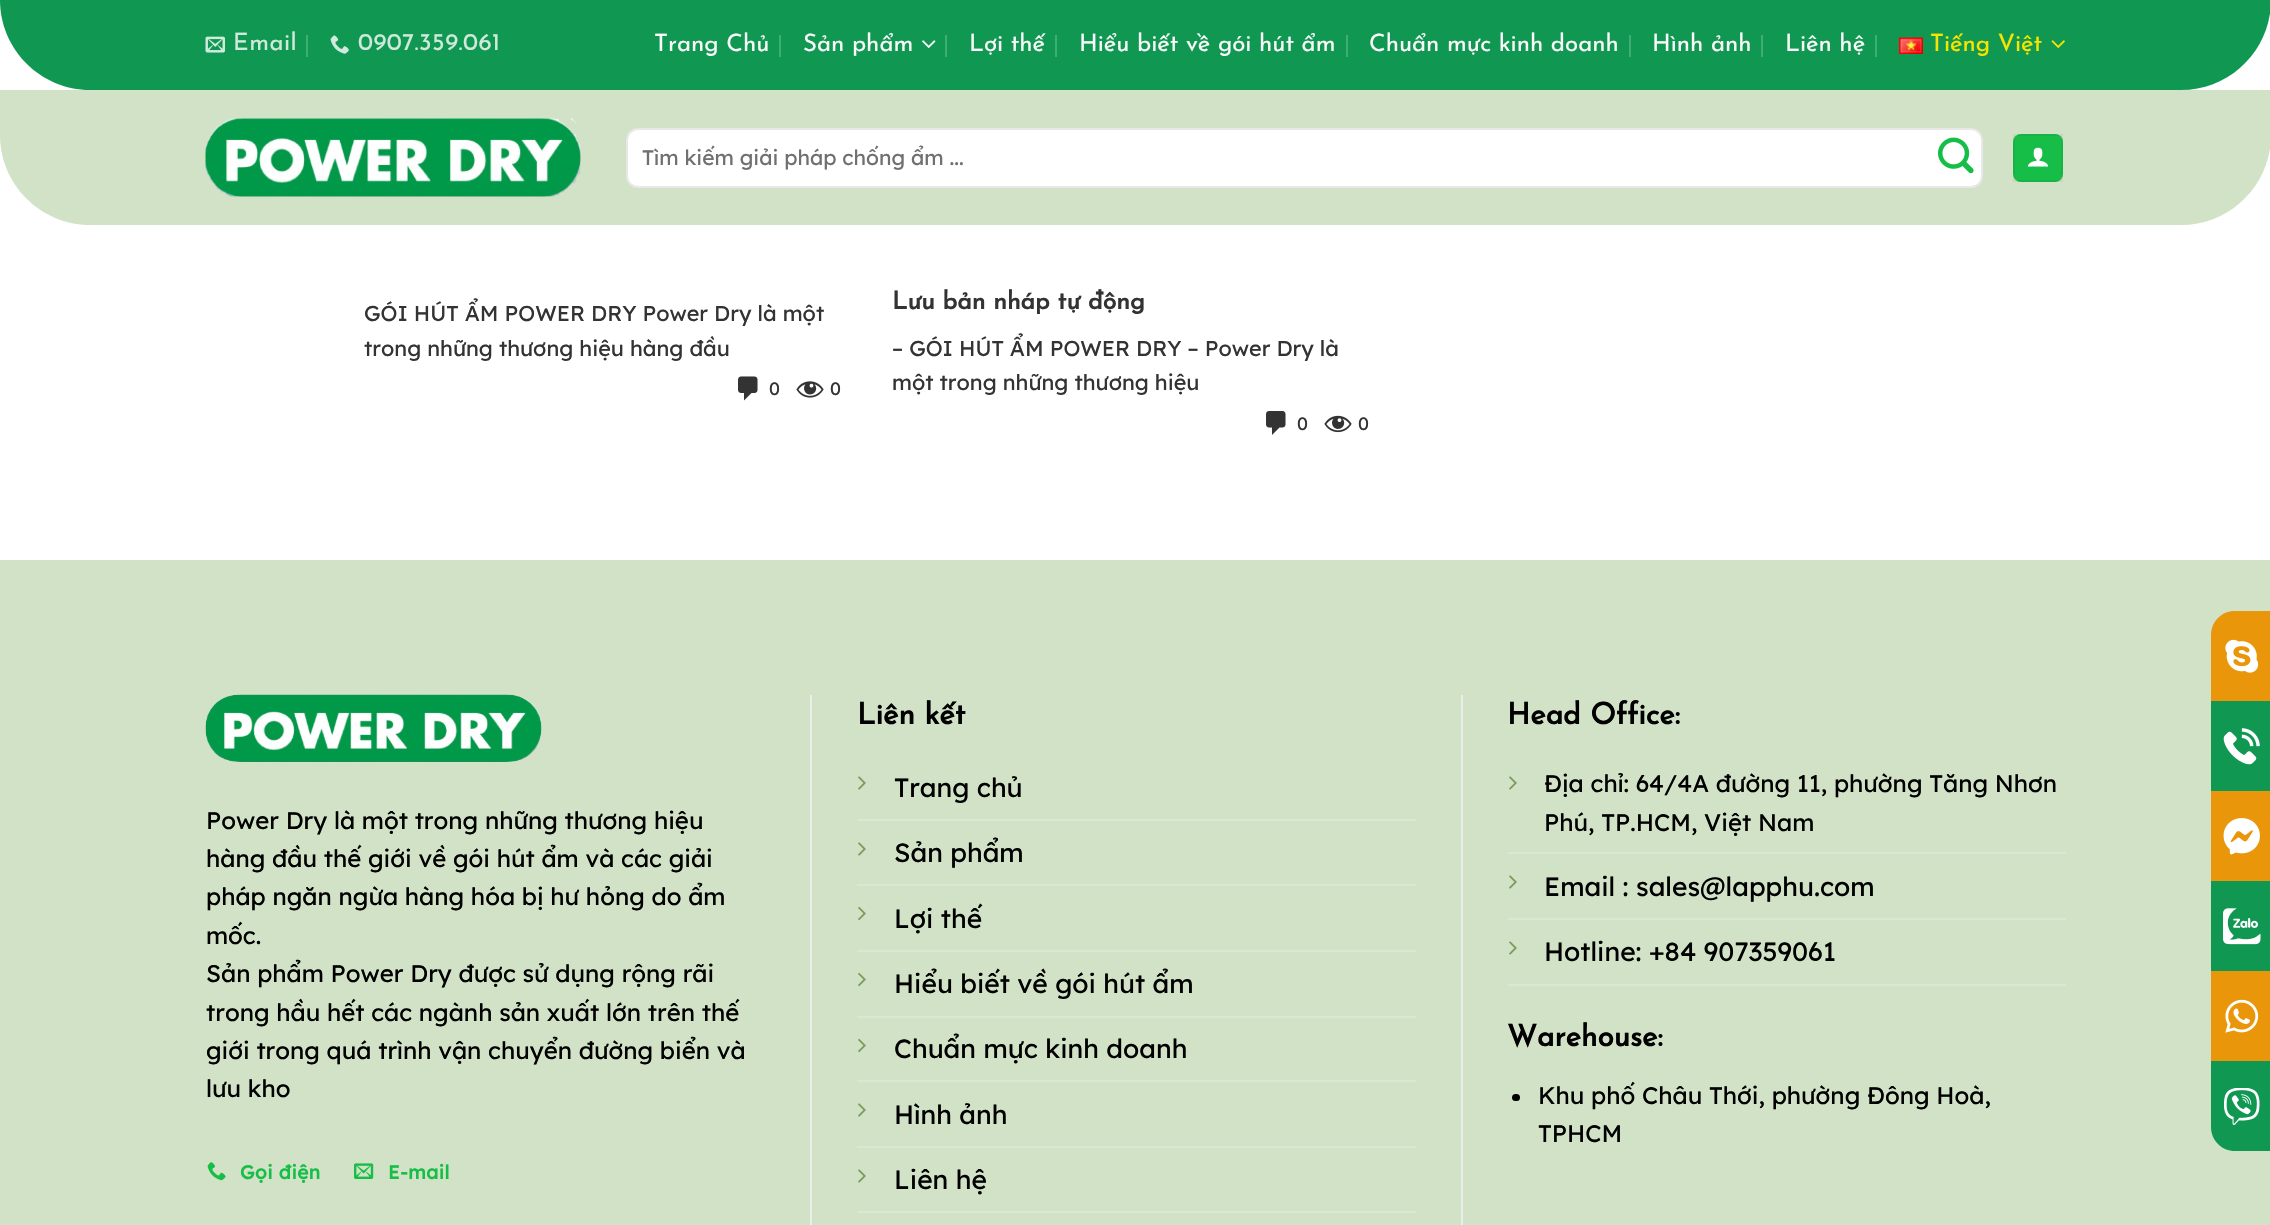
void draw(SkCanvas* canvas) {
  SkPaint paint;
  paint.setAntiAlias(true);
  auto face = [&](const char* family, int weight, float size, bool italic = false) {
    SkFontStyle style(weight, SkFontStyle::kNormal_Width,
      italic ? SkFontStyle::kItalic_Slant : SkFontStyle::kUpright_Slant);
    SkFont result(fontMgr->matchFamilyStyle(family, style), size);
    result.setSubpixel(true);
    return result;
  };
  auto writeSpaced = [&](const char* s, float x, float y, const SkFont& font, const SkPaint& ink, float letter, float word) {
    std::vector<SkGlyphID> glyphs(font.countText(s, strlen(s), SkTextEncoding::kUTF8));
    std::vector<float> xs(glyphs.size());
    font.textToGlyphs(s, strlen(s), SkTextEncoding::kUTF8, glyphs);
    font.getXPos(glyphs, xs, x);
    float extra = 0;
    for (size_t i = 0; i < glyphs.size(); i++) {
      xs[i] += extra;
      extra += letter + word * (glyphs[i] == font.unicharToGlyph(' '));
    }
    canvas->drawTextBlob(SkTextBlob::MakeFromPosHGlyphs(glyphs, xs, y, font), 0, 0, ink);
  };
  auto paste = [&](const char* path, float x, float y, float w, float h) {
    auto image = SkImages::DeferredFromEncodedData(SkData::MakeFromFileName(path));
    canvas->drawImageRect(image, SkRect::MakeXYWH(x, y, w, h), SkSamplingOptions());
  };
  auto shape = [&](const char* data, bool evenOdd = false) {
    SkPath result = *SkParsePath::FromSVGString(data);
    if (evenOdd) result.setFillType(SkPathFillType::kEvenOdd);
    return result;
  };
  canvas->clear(0xffffffff);
  paint.setColor(0xff109852);
  canvas->drawPath(shape("M0 0H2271C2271 49.5 2230.5 90 2181 90H90C40.5 90 0 49.5 0 0Z"), paint);
  paste("img/1.png", 205, 36, 20, 17);
  paint.setColor(0xff40ad75);
  canvas->drawRect(SkRect::MakeXYWH(306, 35, 2, 22), paint);
  paste("img/2.png", 330, 35, 19, 19);
  canvas->drawRect(SkRect::MakeXYWH(779, 35, 2, 22), paint);
  paste("img/3.png", 922, 40, 14, 8);
  {
    const struct { float x, y, w, h; SkColor color; } items[] = {
      {945, 35, 2, 22, 0xff40ad75},
      {1055, 35, 2, 22, 0xff40ad75},
      {1346, 35, 2, 22, 0xff40ad75},
      {1629, 35, 2, 22, 0xff40ad75},
      {1761, 35, 2, 22, 0xff40ad75},
      {1875, 35, 2, 22, 0xff40ad75},
    };
    for (auto [x, y, w, h, color] : items) {
      paint.setColor(color);
      canvas->drawRect(SkRect::MakeXYWH(x, y, w, h), paint);
    }
  }
  paste("img/4.png", 1899, 37, 24, 17);
  paste("img/5.png", 2051, 40, 14, 8);
  paint.setColor(0xffd2e2c6);
  canvas->drawPath(shape("M0 90H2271V135C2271 184.5 2230.5 225 2181 225H90C40.5 225 0 184.5 0 135Z"), paint);
  paste("img/6.png", 205, 118, 376, 79);
  paint.setColor(0xffffffff);
  canvas->drawRoundRect(SkRect::MakeXYWH(626, 128, 1357, 60), 12, 12, paint);
  paint.setStroke(true);
  paint.setStrokeWidth(2);
  paint.setColor(0x17000000);
  canvas->drawRoundRect(SkRect::MakeXYWH(627, 129, 1355, 58), 11, 11, paint);
  paste("img/7.png", 1938, 137, 36, 37);
  paint.setStroke(false);
  paint.setColor(0xff16be47);
  canvas->drawRoundRect(SkRect::MakeXYWH(2013, 134, 50, 48), 8, 8, paint);
  paint.setStroke(true);
  paint.setColor(0x0d000000);
  canvas->drawRect(SkRect::MakeXYWH(2014, 135, 48, 46), paint);
  paste("img/8.png", 2028, 147, 21, 20);
  paste("img/9.png", 738, 376, 20, 25);
  paste("img/10.png", 796, 381, 28, 17);
  paste("img/11.png", 1266, 411, 20, 24);
  paste("img/12.png", 1324, 415, 28, 18);
  paint.setStroke(false);
  paint.setColor(0xffd2e2c6);
  canvas->drawRect(SkRect::MakeXYWH(0, 560, 2270, 665), paint);
  paste("img/13.png", 205, 694, 337, 68);
  paste("img/14.png", 207, 1162, 19, 19);
  paste("img/15.png", 354, 1163, 20, 16);
  paint.setColor(0xffececec);
  canvas->drawRect(SkRect::MakeXYWH(810, 695, 2, 530), paint);
  paint.setColor(0xffdbe8d1);
  canvas->drawRect(SkRect::MakeXYWH(857, 819, 559, 2), paint);
  paste("img/16.png", 858, 776, 8, 14);
  canvas->drawRect(SkRect::MakeXYWH(857, 884, 559, 2), paint);
  paste("img/16.png", 858, 842, 8, 14);
  canvas->drawRect(SkRect::MakeXYWH(857, 950, 559, 2), paint);
  paste("img/17.png", 858, 906, 8, 15);
  canvas->drawRect(SkRect::MakeXYWH(857, 1016, 559, 2), paint);
  paste("img/17.png", 858, 972, 8, 15);
  canvas->drawRect(SkRect::MakeXYWH(857, 1080, 559, 2), paint);
  paste("img/17.png", 858, 1038, 8, 15);
  canvas->drawRect(SkRect::MakeXYWH(857, 1146, 559, 2), paint);
  paste("img/16.png", 858, 1103, 8, 14);
  canvas->drawRect(SkRect::MakeXYWH(857, 1211, 559, 2), paint);
  paste("img/16.png", 858, 1169, 8, 14);
  paint.setColor(0xffececec);
  canvas->drawRect(SkRect::MakeXYWH(1461, 695, 2, 530), paint);
  paint.setColor(0xffdbe8d1);
  canvas->drawRect(SkRect::MakeXYWH(1508, 852, 558, 2), paint);
  paste("img/16.png", 1509, 776, 8, 14);
  canvas->drawRect(SkRect::MakeXYWH(1508, 918, 558, 2), paint);
  paste("img/16.png", 1509, 875, 8, 14);
  canvas->drawRect(SkRect::MakeXYWH(1508, 984, 558, 2), paint);
  paste("img/16.png", 1509, 941, 8, 14);
  paint.setColor(0xff000000);
  canvas->drawRoundRect(SkRect::MakeXYWH(1512, 1094, 8, 7), 3.5f, 3.5f, paint);
  paint.setColor(0xffe9960b);
  canvas->drawPath(shape("M2235 611H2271V701H2211V635C2211 621.5 2221.5 611 2235 611Z"), paint);
  paste("img/18.png", 2225, 639, 34, 34);
  paint.setColor(0xff109852);
  canvas->drawRect(SkRect::MakeXYWH(2211, 701, 59, 90), paint);
  paste("img/19.png", 2223, 728, 37, 37);
  paint.setColor(0xffe9960b);
  canvas->drawRect(SkRect::MakeXYWH(2211, 791, 59, 90), paint);
  paste("img/20.png", 2223, 818, 37, 37);
  paint.setColor(0xff109852);
  canvas->drawRect(SkRect::MakeXYWH(2211, 881, 59, 90), paint);
  paste("img/21.png", 2223, 908, 38, 37);
  paint.setColor(0xffe9960b);
  canvas->drawRect(SkRect::MakeXYWH(2211, 971, 59, 90), paint);
  paste("img/22.png", 2225, 999, 34, 34);
  paint.setColor(0xff109852);
  canvas->drawPath(shape("M2211 1061H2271V1151H2235C2221.5 1151 2211 1140.5 2211 1127Z"), paint);
  paste("img/23.png", 2224, 1088, 36, 37);
  auto f0 = face("Josefin Sans", 100, 24);
  paint.setColor(0xffcfeadc);
  writeSpaced("Email", 233, 50, f0, paint, 0.5f, 0);
  writeSpaced("0907.359.061", 358, 50, f0, paint, 0.5f, 0);
  paint.setColor(0xfff9f9f9);
  {
    const struct { const char* s; float x, y; } items[] = {
      {"Trang Chủ", 654, 51},
      {"Sản phẩm", 803, 51},
      {"Lợi thế", 969, 51},
      {"Hiểu biết về gói hút ẩm", 1079, 51},
      {"Chuẩn mực kinh doanh", 1369, 51},
      {"Hình ảnh", 1652, 51},
      {"Liên hệ", 1785, 51},
    };
    for (auto [s, x, y] : items) {
      canvas->drawString(s, x, y, f0, paint);
    }
  }
  paint.setColor(0xfff7e400);
  canvas->drawString("Tiếng Việt", 1930, 51, f0, paint);
  auto f1 = face("Lexend", 400, 21);
  paint.setColor(0xff707070);
  canvas->drawString("Tìm kiếm giải pháp chống ẩm ...", 642, 165, f1, paint);
  auto f2 = face("Lexend", 400, 21.6f);
  paint.setColor(0xff333333);
  canvas->drawString("GÓI HÚT ẨM POWER DRY Power Dry là một", 364, 321, f2, paint);
  canvas->drawString("trong những thương hiệu hàng đầu", 364, 356, f2, paint);
  auto f3 = face("Lexend", 400, 18);
  canvas->drawString("0", 769, 395, f3, paint);
  canvas->drawString("0", 830, 395, f3, paint);
  auto f4 = face("Josefin Sans", 700, 24.75f);
  canvas->drawString("Lưu bản nháp tự động", 892, 309, f4, paint);
  canvas->drawString("– GÓI HÚT ẨM POWER DRY – Power Dry là", 892, 356, f2, paint);
  canvas->drawString("một trong những thương hiệu", 892, 390, f2, paint);
  canvas->drawString("0", 1297, 430, f3, paint);
  canvas->drawString("0", 1358, 430, f3, paint);
  auto f5 = face("Lexend", 400, 24);
  paint.setColor(0xff000000);
  {
    const struct { const char* s; float x, y; } items[] = {
      {"Power Dry là một trong những thương hiệu", 206, 829},
      {"hàng đầu thế giới về gói hút ẩm và các giải", 206, 867},
      {"pháp ngăn ngừa hàng hóa bị hư hỏng do ẩm", 206, 905},
      {"mốc.", 206, 944},
      {"Sản phẩm Power Dry được sử dụng rộng rãi", 206, 982},
      {"trong hầu hết các ngành sản xuất lớn trên thế", 206, 1021},
      {"giới trong quá trình vận chuyển đường biển và", 206, 1059},
      {"lưu kho", 206, 1097},
    };
    for (auto [s, x, y] : items) {
      canvas->drawString(s, x, y, f5, paint);
    }
  }
  auto f6 = face("Lexend", 700, 19);
  paint.setColor(0xff16be47);
  writeSpaced("Gọi điện", 240, 1179, f6, paint, 0.5f, 0);
  writeSpaced("E-mail", 388, 1179, f6, paint, 0.5f, 0);
  auto f7 = face("Josefin Sans", 700, 29.75f);
  paint.setColor(0xff000000);
  canvas->drawString("Liên kết", 857, 724, f7, paint);
  auto f8 = face("Lexend", 400, 26.4f);
  {
    const struct { const char* s; float x, y; } items[] = {
      {"Trang chủ", 894, 797},
      {"Sản phẩm", 894, 862},
      {"Lợi thế", 894, 928},
      {"Hiểu biết về gói hút ẩm", 894, 993},
      {"Chuẩn mực kinh doanh", 894, 1058},
      {"Hình ảnh", 894, 1124},
      {"Liên hệ", 894, 1189},
    };
    for (auto [s, x, y] : items) {
      canvas->drawString(s, x, y, f8, paint);
    }
  }
  canvas->drawString("Head Office:", 1507, 724, f7, paint);
  canvas->drawString("Địa chỉ: 64/4A đường 11, phường Tăng Nhơn", 1544, 792, f5, paint);
  canvas->drawString("Phú, TP.HCM, Việt Nam", 1544, 831, f5, paint);
  canvas->drawString("Email : sales@lapphu.com", 1544, 896, f8, paint);
  canvas->drawString("Hotline: +84 907359061", 1544, 961, f8, paint);
  canvas->drawString("Warehouse:", 1507, 1046, f7, paint);
  canvas->drawString("Khu phố Châu Thới, phường Đông Hoà,", 1538, 1104, f5, paint);
  canvas->drawString("TPHCM", 1538, 1142, f5, paint);
}
